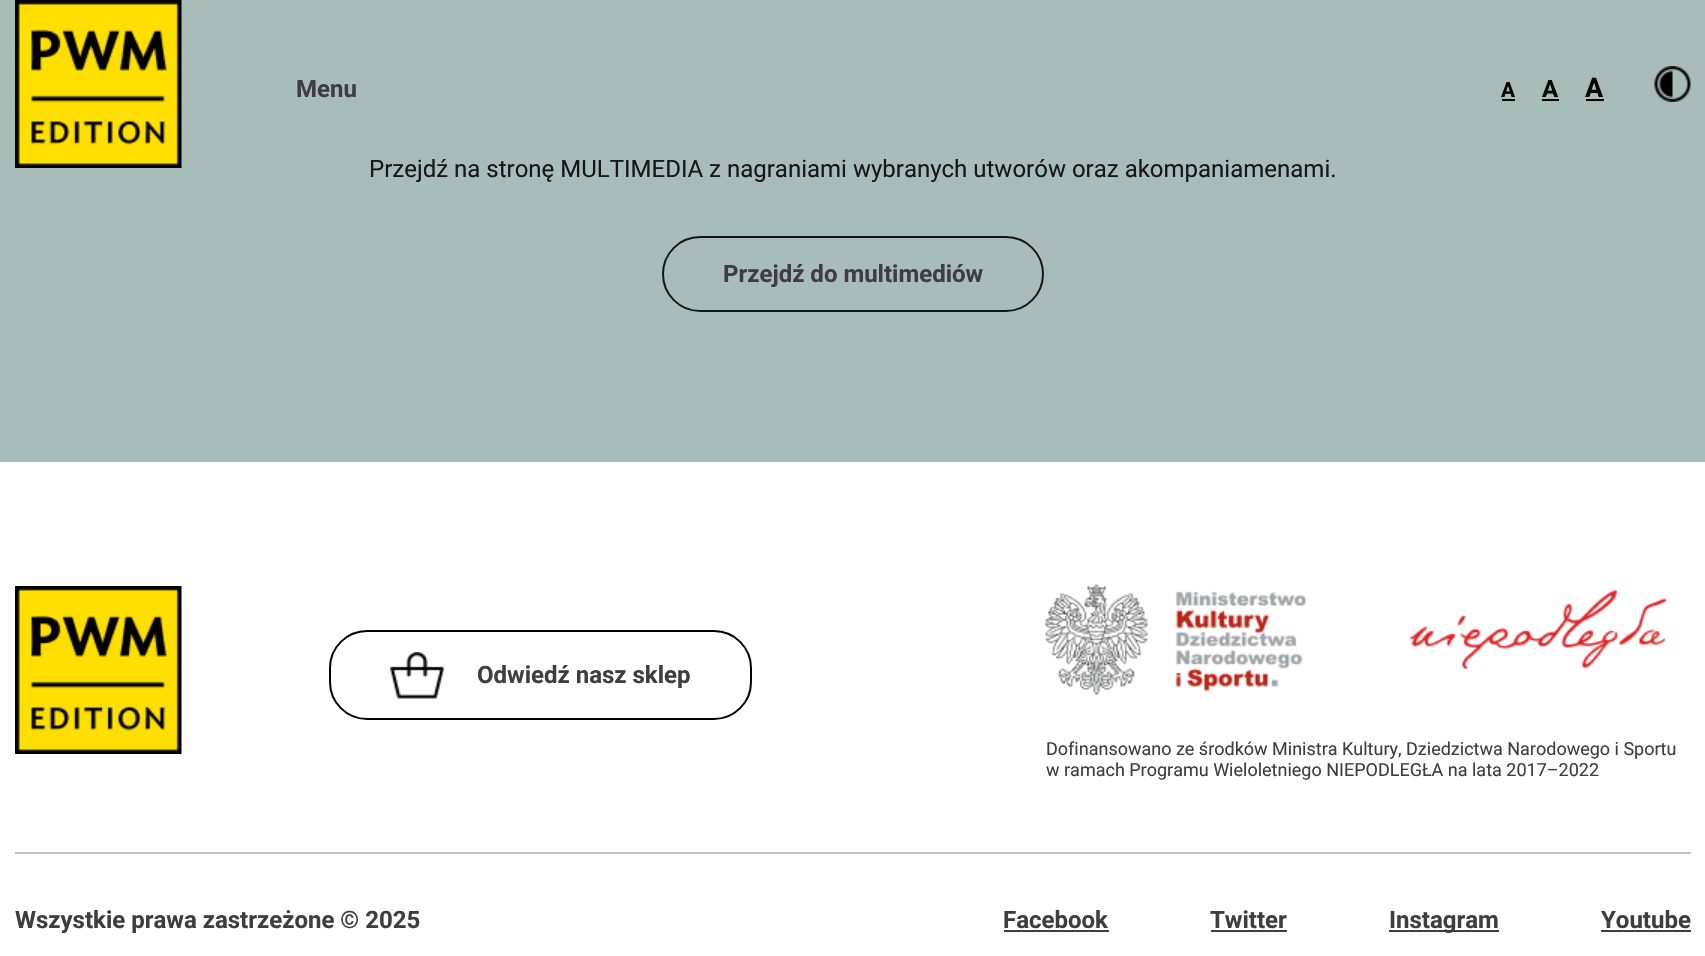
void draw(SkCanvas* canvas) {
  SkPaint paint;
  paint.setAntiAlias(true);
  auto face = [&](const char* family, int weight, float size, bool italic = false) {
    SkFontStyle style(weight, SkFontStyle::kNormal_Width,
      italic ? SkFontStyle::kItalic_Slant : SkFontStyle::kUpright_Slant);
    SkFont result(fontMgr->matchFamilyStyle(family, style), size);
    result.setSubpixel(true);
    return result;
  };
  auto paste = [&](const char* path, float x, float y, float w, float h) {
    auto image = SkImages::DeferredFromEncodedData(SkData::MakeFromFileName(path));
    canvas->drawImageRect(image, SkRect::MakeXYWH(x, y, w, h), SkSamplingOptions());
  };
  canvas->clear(0xffa9bdb8);
  paste("img/1.png", 15, 0, 167, 168);
  {
    const struct { float x, y, w, h; SkColor color; } items[] = {
      {1502, 99, 13, 2, 0xff000000},
      {1542, 99, 17, 2, 0xff000000},
      {1586, 99, 18, 2, 0xff000000},
    };
    for (auto [x, y, w, h, color] : items) {
      paint.setColor(color);
      canvas->drawRect(SkRect::MakeXYWH(x, y, w, h), paint);
    }
  }
  paste("img/2.png", 1654, 66, 37, 36);
  paint.setStroke(true);
  paint.setStrokeWidth(2);
  paint.setColor(0xff171717);
  canvas->drawRoundRect(SkRect::MakeXYWH(663, 237, 380, 74), 37, 37, paint);
  paint.setStroke(false);
  paint.setColor(0xffffffff);
  canvas->drawRect(SkRect::MakeXYWH(0, 462, 1705, 494), paint);
  paste("img/3.png", 15, 586, 167, 168);
  paint.setStroke(true);
  paint.setColor(0xff000000);
  canvas->drawRoundRect(SkRect::MakeXYWH(330, 631, 421, 88), 37, 37, paint);
  paste("img/4.png", 390, 652, 54, 47);
  paste("img/5.png", 1045, 584, 262, 112);
  paste("img/6.png", 1410, 590, 257, 79);
  paint.setStroke(false);
  {
    const struct { float x, y, w, h; SkColor color; } items[] = {
      {15, 852, 1676, 2, 0xffc4c4c4},
      {1004, 930, 105, 2, 0xff3f3e3e},
      {1211, 930, 76, 2, 0xff3f3e3e},
      {1389, 930, 110, 2, 0xff3f3e3e},
      {1601, 930, 90, 2, 0xff3f3e3e},
    };
    for (auto [x, y, w, h, color] : items) {
      paint.setColor(color);
      canvas->drawRect(SkRect::MakeXYWH(x, y, w, h), paint);
    }
  }
  auto f0 = face("Roboto", 700, 24);
  canvas->drawString("Menu", 296, 97, f0, paint);
  auto f1 = face("Roboto", 700, 21);
  paint.setColor(0xff000000);
  canvas->drawString("A", 1501, 97, f1, paint);
  canvas->drawString("A", 1542, 97, f0, paint);
  auto f2 = face("Roboto", 700, 27);
  canvas->drawString("A", 1585, 97, f2, paint);
  auto f3 = face("Roboto", 400, 24);
  paint.setColor(0xff171717);
  canvas->drawString("Przejdź na stronę MULTIMEDIA z nagraniami wybranych utworów oraz akompaniamenami.", 369, 177, f3, paint);
  paint.setColor(0xff3f3e3e);
  canvas->drawString("Przejdź do multimediów", 723, 282, f0, paint);
  canvas->drawString("Odwiedź nasz sklep", 477, 683, f0, paint);
  auto f4 = face("Roboto", 400, 18);
  canvas->drawString("Dofinansowano ze środków Ministra Kultury, Dziedzictwa Narodowego i Sportu", 1046, 755, f4, paint);
  canvas->drawString("w ramach Programu Wieloletniego NIEPODLEGŁA na lata 2017–2022", 1046, 776, f4, paint);
  {
    const struct { const char* s; float x, y; } items[] = {
      {"Wszystkie prawa zastrzeżone © 2025", 15, 928},
      {"Facebook", 1003, 928},
      {"Twitter", 1210, 928},
      {"Instagram", 1389, 928},
      {"Youtube", 1601, 928},
    };
    for (auto [s, x, y] : items) {
      canvas->drawString(s, x, y, f0, paint);
    }
  }
}
